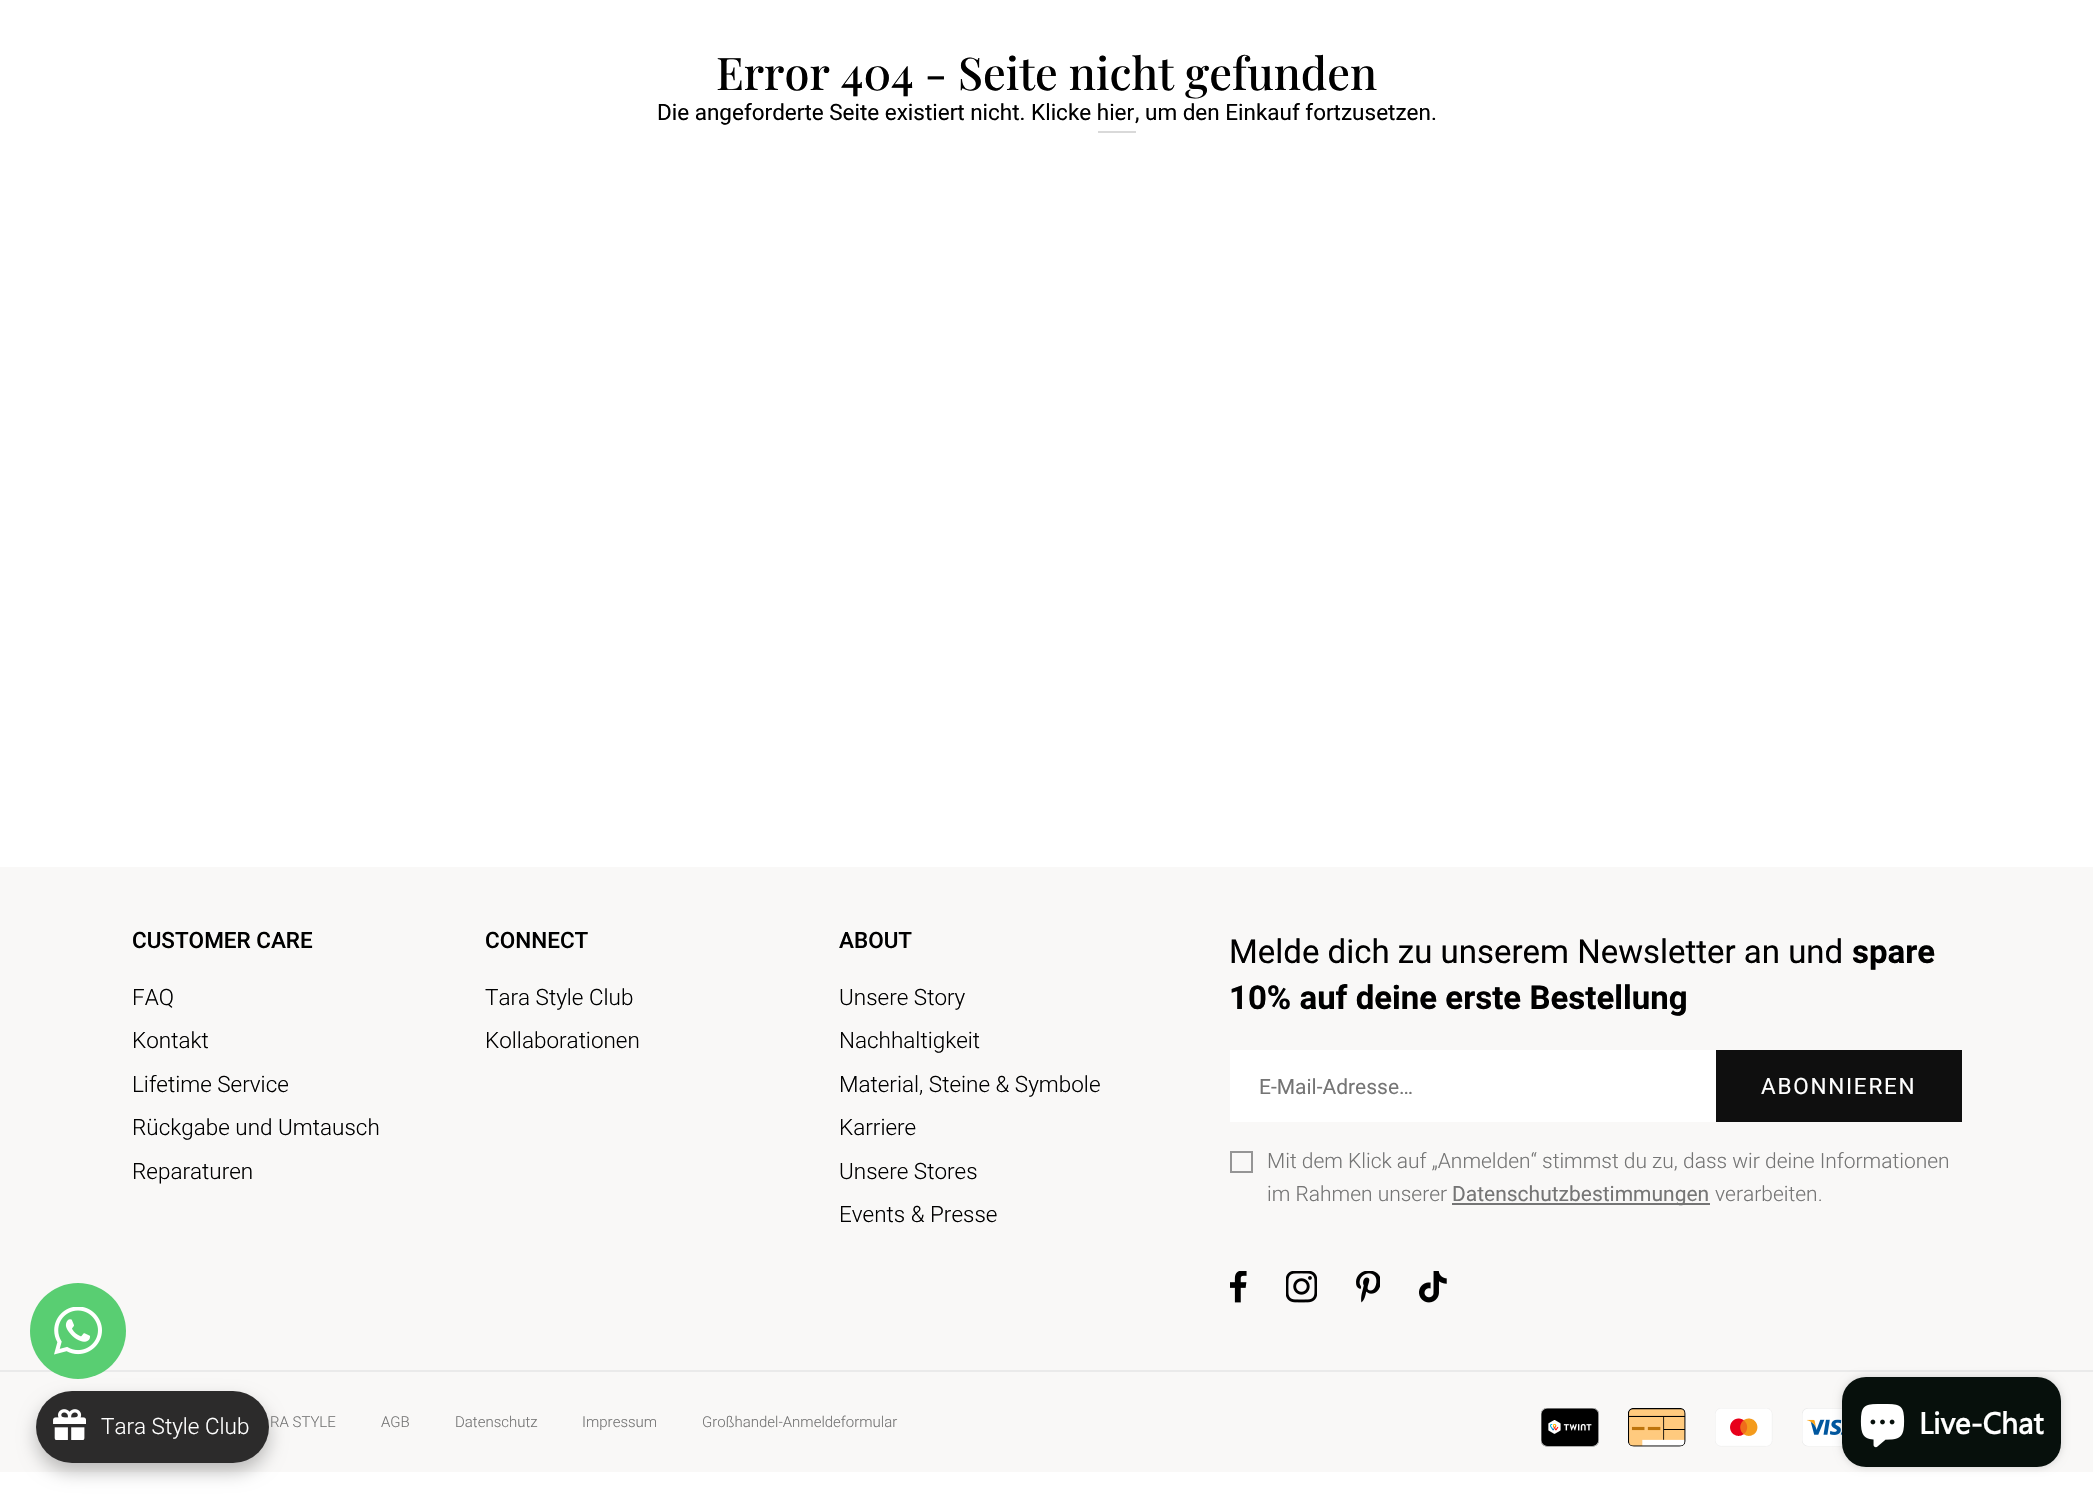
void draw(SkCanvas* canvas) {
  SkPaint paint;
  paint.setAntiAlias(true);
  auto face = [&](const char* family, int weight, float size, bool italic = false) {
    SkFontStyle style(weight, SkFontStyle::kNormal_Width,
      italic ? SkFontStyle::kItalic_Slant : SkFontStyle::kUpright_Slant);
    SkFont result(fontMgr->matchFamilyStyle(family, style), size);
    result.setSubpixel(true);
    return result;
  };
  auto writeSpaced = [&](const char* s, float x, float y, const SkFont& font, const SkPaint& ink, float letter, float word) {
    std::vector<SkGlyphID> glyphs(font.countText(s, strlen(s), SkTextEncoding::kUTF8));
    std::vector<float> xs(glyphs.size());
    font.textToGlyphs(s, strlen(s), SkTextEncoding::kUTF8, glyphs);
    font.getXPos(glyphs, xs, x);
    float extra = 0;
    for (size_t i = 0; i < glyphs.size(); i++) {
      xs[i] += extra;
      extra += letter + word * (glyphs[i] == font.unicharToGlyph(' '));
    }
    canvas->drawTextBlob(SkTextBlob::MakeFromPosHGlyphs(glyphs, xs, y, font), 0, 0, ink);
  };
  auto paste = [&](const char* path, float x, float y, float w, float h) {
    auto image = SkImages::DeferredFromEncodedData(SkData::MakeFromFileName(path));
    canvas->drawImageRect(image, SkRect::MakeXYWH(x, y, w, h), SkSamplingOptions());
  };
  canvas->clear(0xffffffff);
  paint.setColor(0xfff9f8f7);
  canvas->drawRect(SkRect::MakeXYWH(0, 867, 2093, 605), paint);
  paint.setColor(0xffeaeaea);
  canvas->drawRect(SkRect::MakeXYWH(0, 1370, 2093, 2), paint);
  paint.setColor(0xff59ce72);
  canvas->drawCircle(78, 1331, 48, paint);
  paste("img/1.png", 54, 1307, 48, 48);
  {
    const struct { float x, y, w, h; SkColor color; } items[] = {
      {1098, 131, 38, 2, 0xffd9d9d9},
      {1230, 1050, 486, 72, 0xffffffff},
      {1716, 1050, 246, 72, 0xff0f0f0f},
    };
    for (auto [x, y, w, h, color] : items) {
      paint.setColor(color);
      canvas->drawRect(SkRect::MakeXYWH(x, y, w, h), paint);
    }
  }
  paint.setStroke(true);
  paint.setStrokeWidth(2);
  paint.setColor(0xff959595);
  canvas->drawRect(SkRect::MakeXYWH(1231, 1152, 21, 20), paint);
  paint.setStroke(false);
  paint.setColor(0xff757575);
  canvas->drawRect(SkRect::MakeXYWH(1452, 1203, 258, 2), paint);
  paste("img/2.png", 1230, 1271, 17, 32);
  paste("img/3.png", 1286, 1271, 31, 32);
  paste("img/4.png", 1356, 1271, 24, 32);
  paste("img/5.png", 1419, 1271, 28, 32);
  paste("img/6.png", 1541, 1408, 58, 39);
  paste("img/7.png", 1628, 1408, 58, 39);
  paste("img/8.png", 1715, 1408, 58, 39);
  paste("img/9.png", 1802, 1408, 41, 39);
  paint.setColor(0x40000000);
  paint.setMaskFilter(SkMaskFilter::MakeBlur(kNormal_SkBlurStyle, 9));
  canvas->drawRoundRect(SkRect::MakeXYWH(36, 1400, 233, 72), 36, 36, paint);
  paint.setMaskFilter(nullptr);
  paint.setColor(0xff2c2b2b);
  canvas->drawRoundRect(SkRect::MakeXYWH(36, 1391, 233, 72), 36, 36, paint);
  paste("img/10.png", 53, 1409, 33, 31);
  paint.setColor(0x26000000);
  paint.setMaskFilter(SkMaskFilter::MakeBlur(kNormal_SkBlurStyle, 4));
  canvas->drawRoundRect(SkRect::MakeXYWH(1842, 1377, 219, 90), 24, 24, paint);
  paint.setMaskFilter(nullptr);
  paint.setColor(0xff07100c);
  canvas->drawRoundRect(SkRect::MakeXYWH(1842, 1377, 219, 90), 24, 24, paint);
  paste("img/11.png", 1860, 1404, 45, 44);
  auto f0 = face("Playfair Display", 500, 45);
  paint.setColor(0xff000000);
  canvas->drawString("Error 404 - Seite nicht gefunden", 716, 90, f0, paint);
  auto f1 = face("Roboto", 400, 22.5f);
  canvas->drawString("Die angeforderte Seite existiert nicht. Klicke hier", 657, 120, f1, paint);
  canvas->drawString(", um den Einkauf fortzusetzen.", 1135, 120, f1, paint);
  auto f2 = face("Roboto", 500, 22.5f);
  canvas->drawString("CUSTOMER CARE", 132, 948, f2, paint);
  auto f3 = face("Roboto", 300, 22.5f);
  {
    const struct { const char* s; float x, y; } items[] = {
      {"FAQ", 132, 1005},
      {"Kontakt", 132, 1048},
      {"Lifetime Service", 132, 1092},
      {"Rückgabe und Umtausch", 132, 1135},
      {"Reparaturen", 132, 1179},
    };
    for (auto [s, x, y] : items) {
      canvas->drawString(s, x, y, f3, paint);
    }
  }
  canvas->drawString("CONNECT", 485, 948, f2, paint);
  canvas->drawString("Tara Style Club", 485, 1005, f3, paint);
  canvas->drawString("Kollaborationen", 485, 1048, f3, paint);
  canvas->drawString("ABOUT", 839, 948, f2, paint);
  {
    const struct { const char* s; float x, y; } items[] = {
      {"Unsere Story", 839, 1005},
      {"Nachhaltigkeit", 839, 1048},
      {"Material, Steine & Symbole", 839, 1092},
      {"Karriere", 839, 1135},
      {"Unsere Stores", 839, 1179},
      {"Events & Presse", 839, 1222},
    };
    for (auto [s, x, y] : items) {
      canvas->drawString(s, x, y, f3, paint);
    }
  }
  auto f4 = face("Roboto", 400, 33);
  canvas->drawString("Melde dich zu unserem Newsletter an und", 1229, 963, f4, paint);
  auto f5 = face("Roboto", 700, 33);
  canvas->drawString("spare", 1852, 963, f5, paint);
  canvas->drawString("10% auf deine erste Bestellung", 1229, 1009, f5, paint);
  auto f6 = face("Roboto", 400, 21);
  paint.setColor(0xff757575);
  canvas->drawString("E-Mail-Adresse…", 1259, 1094, f6, paint);
  paint.setColor(0xffffffff);
  writeSpaced("ABONNIEREN", 1761, 1094, f1, paint, 1.75f, 0);
  auto f7 = face("Roboto", 300, 21);
  paint.setColor(0xff757575);
  canvas->drawString("Mit dem Klick auf „Anmelden“ stimmst du zu, dass wir deine Informationen", 1267, 1168, f7, paint);
  canvas->drawString("im Rahmen unserer", 1267, 1201, f7, paint);
  canvas->drawString("Datenschutzbestimmungen", 1452, 1201, f6, paint);
  canvas->drawString("verarbeiten.", 1715, 1201, f7, paint);
  auto f8 = face("Roboto", 300, 15);
  {
    const struct { const char* s; float x, y; } items[] = {
      {"RA STYLE", 270, 1427},
      {"AGB", 381, 1427},
      {"Datenschutz", 455, 1427},
      {"Impressum", 582, 1427},
      {"Großhandel-Anmeldeformular", 702, 1427},
    };
    for (auto [s, x, y] : items) {
      canvas->drawString(s, x, y, f8, paint);
    }
  }
  paint.setColor(0xffffffff);
  canvas->drawString("Tara Style Club", 101, 1434, f3, paint);
  auto f9 = face("Segoe UI", 700, 30);
  canvas->drawString("Live-Chat", 1919, 1434, f9, paint);
}
